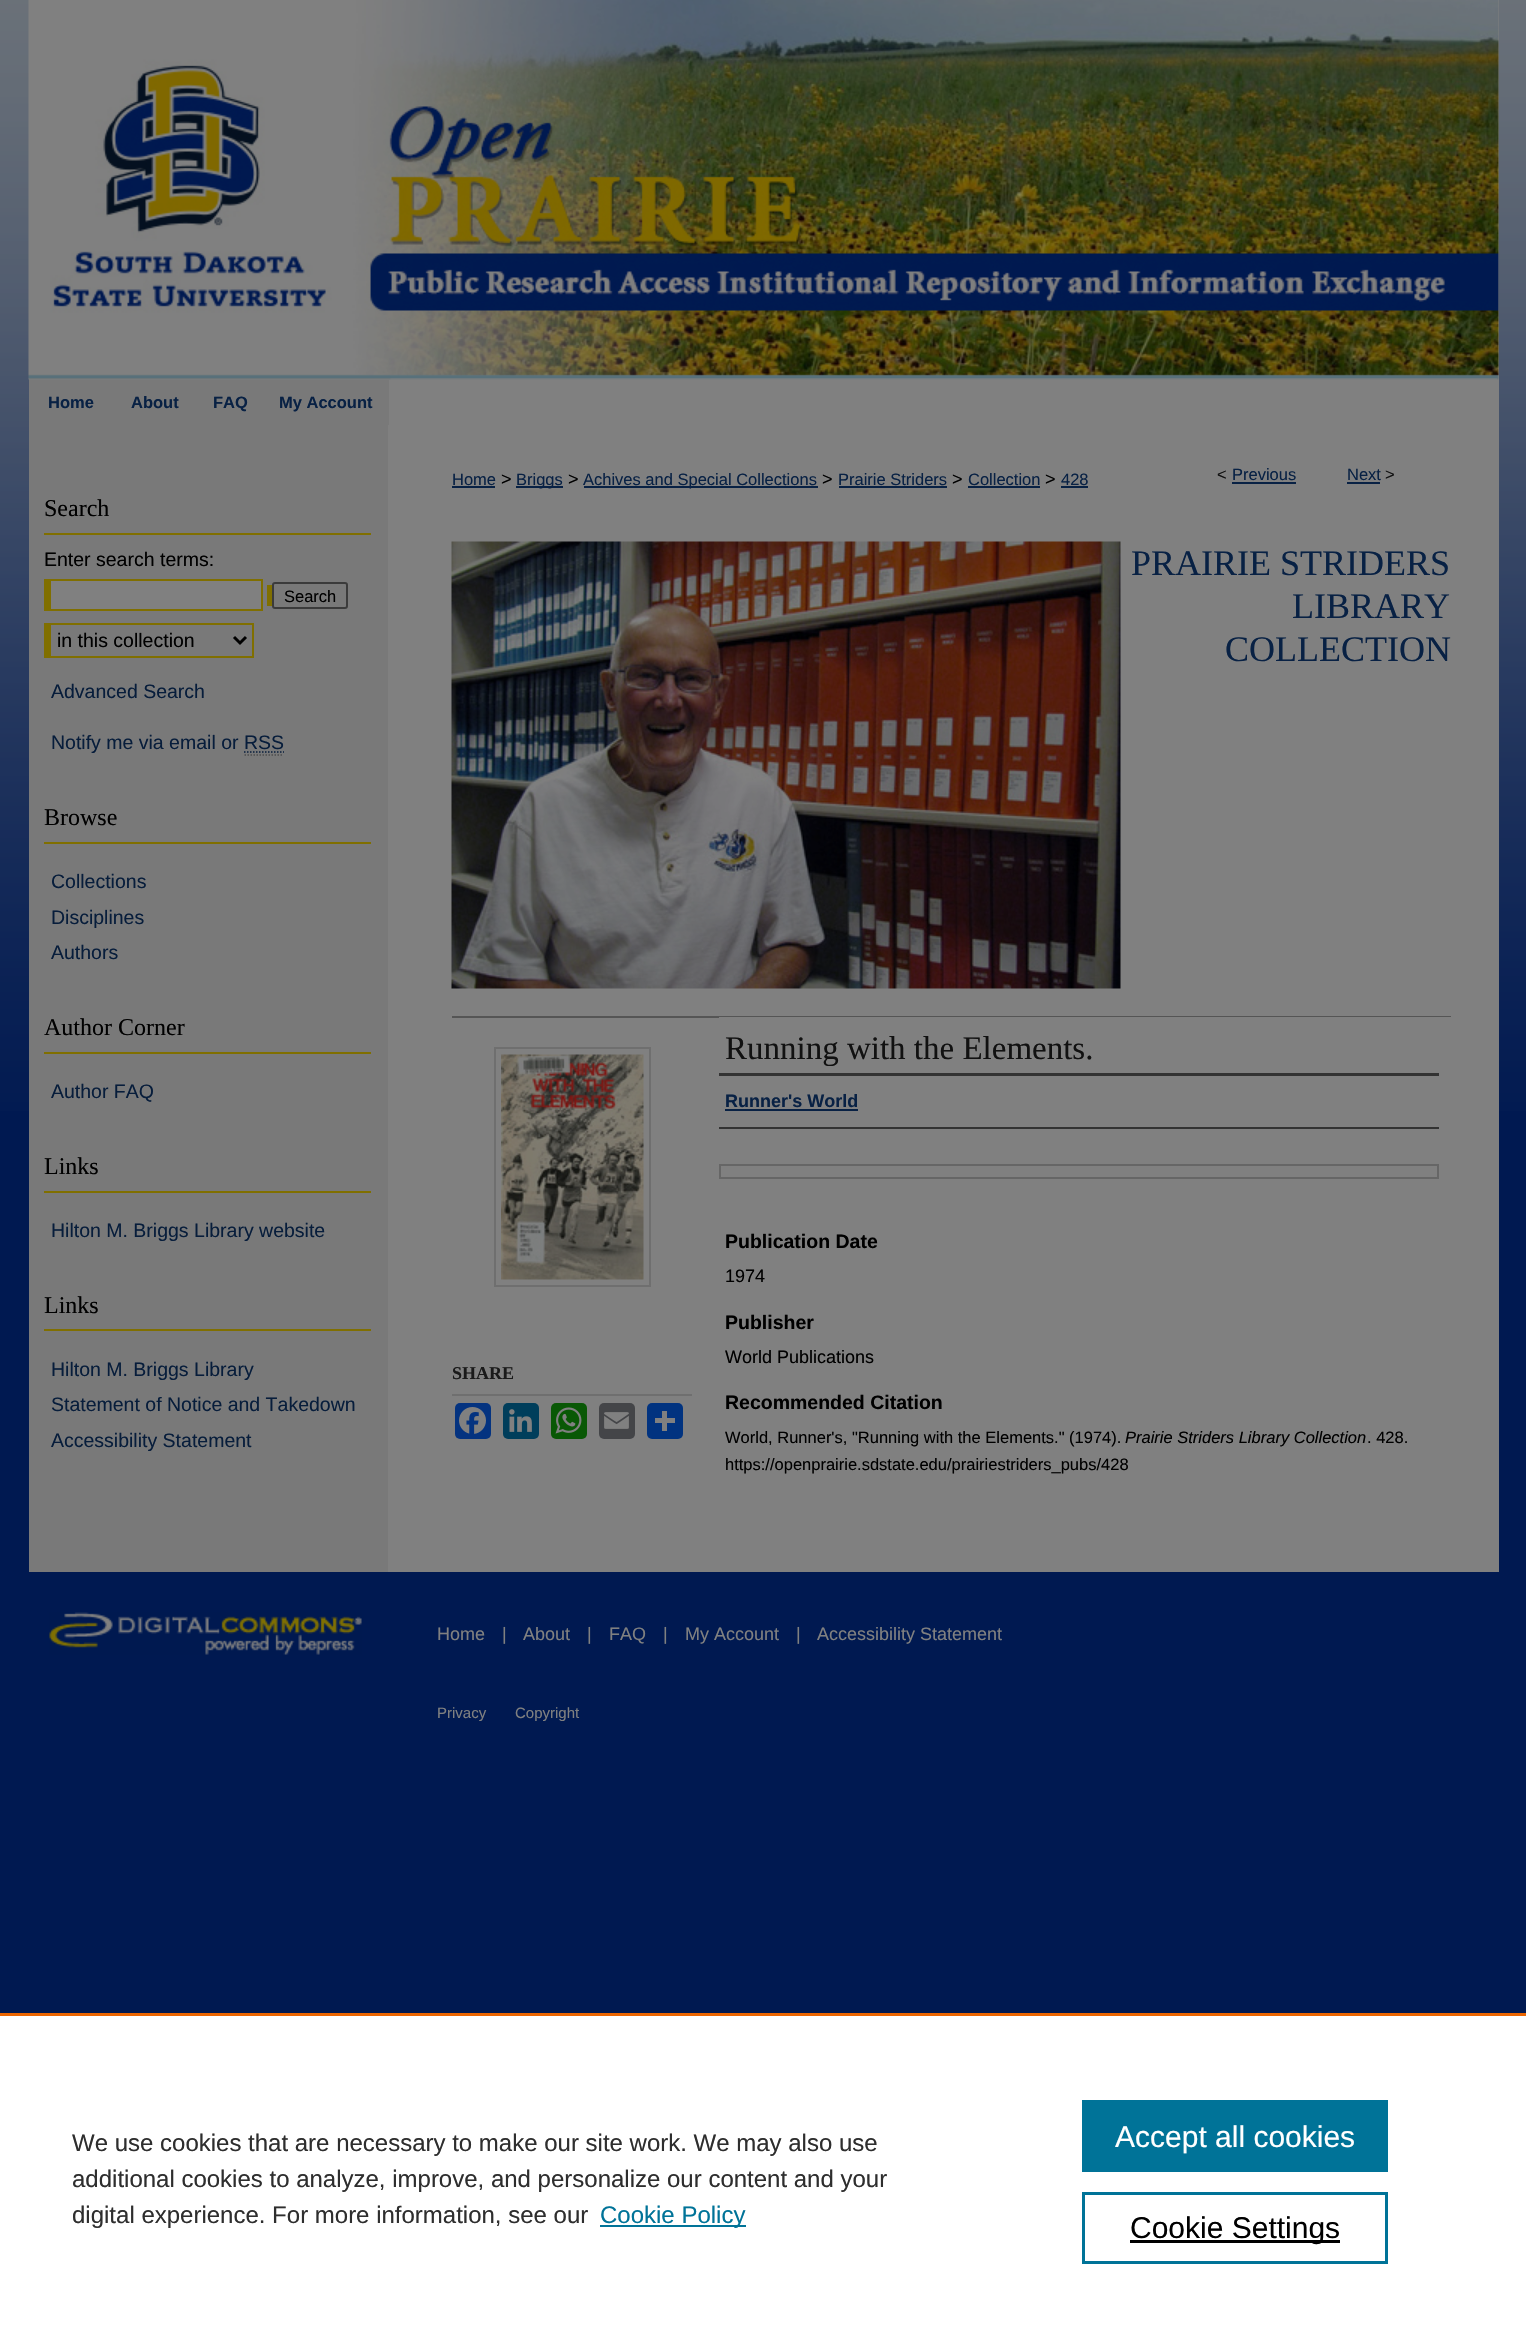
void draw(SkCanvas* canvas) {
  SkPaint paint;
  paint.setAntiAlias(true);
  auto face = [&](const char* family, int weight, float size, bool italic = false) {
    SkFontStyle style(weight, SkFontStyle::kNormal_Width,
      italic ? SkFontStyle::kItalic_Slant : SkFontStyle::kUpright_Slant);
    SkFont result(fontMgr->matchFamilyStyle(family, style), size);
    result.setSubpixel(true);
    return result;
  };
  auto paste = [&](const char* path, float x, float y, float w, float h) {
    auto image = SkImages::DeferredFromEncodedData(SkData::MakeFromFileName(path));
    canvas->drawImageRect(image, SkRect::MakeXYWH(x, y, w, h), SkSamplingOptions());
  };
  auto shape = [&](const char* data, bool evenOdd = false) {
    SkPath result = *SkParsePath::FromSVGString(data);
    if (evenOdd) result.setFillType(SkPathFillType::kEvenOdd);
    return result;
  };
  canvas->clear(0xff001951);
  paste("img/1.png", 0, 0, 1526, 1111);
  paint.setColor(0xff808080);
  canvas->drawRect(SkRect::MakeXYWH(29, 0, 1470, 380), paint);
  paste("img/2.png", 28, 0, 338, 380);
  paste("img/3.png", 366, 0, 1133, 380);
  {
    const struct { float x, y, w, h; SkColor color; } items[] = {
      {389, 380, 1110, 45, 0xff808080},
      {29, 380, 360, 45, 0xff797979},
      {29, 425, 359, 1147, 0xff797979},
      {388, 425, 1111, 1147, 0xff808080},
      {44, 533, 327, 2, 0xff806f00},
      {44, 579, 219, 32, 0xff806f00},
      {267, 585, 5, 21, 0xff806f00},
      {51, 581, 210, 28, 0xff808080},
    };
    for (auto [x, y, w, h, color] : items) {
      paint.setColor(color);
      canvas->drawRect(SkRect::MakeXYWH(x, y, w, h), paint);
    }
  }
  paint.setStroke(true);
  paint.setStrokeWidth(2);
  paint.setColor(0xff3b3b3b);
  canvas->drawRoundRect(SkRect::MakeXYWH(273, 583, 74, 25), 2, 2, paint);
  paint.setStroke(false);
  {
    const struct { float x, y, w, h; SkColor color; } items[] = {
      {44, 623, 210, 2, 0xff806f00},
      {252, 623, 2, 34, 0xff806f00},
      {44, 656, 210, 2, 0xff806f00},
      {44, 623, 7, 34, 0xff806f00},
    };
    for (auto [x, y, w, h, color] : items) {
      paint.setColor(color);
      canvas->drawRect(SkRect::MakeXYWH(x, y, w, h), paint);
    }
  }
  paint.setStroke(true);
  paint.setStrokeWidth(3);
  paint.setColor(0xff000000);
  canvas->drawPath(shape("M234 637L240 643L246 637"), paint);
  paint.setStrokeWidth(1.5f);
  paint.setColor(0xff071d3b);
  paint.setPathEffect(SkDashPathEffect::Make({{1.5f, 1.5f}}, 0));
  canvas->drawPath(shape("M244 752H284"), paint);
  paint.setPathEffect(nullptr);
  paint.setColor(0xff4d4d4d);
  paint.setPathEffect(SkDashPathEffect::Make({{1.5f, 1.5f}}, 0));
  canvas->drawPath(shape("M244.5 755H283.5"), paint);
  paint.setPathEffect(nullptr);
  paint.setStroke(false);
  {
    const struct { float x, y, w, h; SkColor color; } items[] = {
      {44, 842, 327, 2, 0xff806f00},
      {44, 1052, 327, 2, 0xff806f00},
      {44, 1191, 327, 2, 0xff806f00},
      {44, 1329, 327, 2, 0xff806f00},
      {452, 486, 43, 2, 0xff082144},
      {516, 486, 47, 2, 0xff082144},
      {584, 486, 234, 2, 0xff082144},
      {839, 486, 108, 2, 0xff082144},
      {968, 486, 72, 2, 0xff082144},
      {1061, 486, 27, 2, 0xff082144},
      {1232, 482, 64, 2, 0xff082144},
      {1347, 482, 33, 2, 0xff082144},
    };
    for (auto [x, y, w, h, color] : items) {
      paint.setColor(color);
      canvas->drawRect(SkRect::MakeXYWH(x, y, w, h), paint);
    }
  }
  paste("img/4.png", 451, 541, 670, 448);
  paint.setStroke(true);
  paint.setStrokeWidth(2);
  paint.setColor(0xff6f6f6f);
  canvas->drawRect(SkRect::MakeXYWH(495, 1048, 155, 238), paint);
  paste("img/5.png", 501, 1054, 143, 226);
  paint.setStroke(false);
  canvas->drawRect(SkRect::MakeXYWH(452, 1394, 240, 2), paint);
  paint.setColor(0xff043380);
  canvas->drawRoundRect(SkRect::MakeXYWH(455, 1403, 36, 36), 5, 5, paint);
  paste("img/6.png", 459, 1407, 27, 27);
  paint.setColor(0xff003e5b);
  canvas->drawRoundRect(SkRect::MakeXYWH(503, 1403, 36, 36), 5, 5, paint);
  paste("img/7.png", 509, 1409, 23, 23);
  paint.setColor(0xff095805);
  canvas->drawRoundRect(SkRect::MakeXYWH(551, 1403, 36, 36), 5, 5, paint);
  paste("img/8.png", 555, 1407, 27, 27);
  paint.setColor(0xff444548);
  canvas->drawRoundRect(SkRect::MakeXYWH(599, 1403, 36, 36), 5, 5, paint);
  paste("img/9.png", 604, 1412, 25, 17);
  paint.setColor(0xff013380);
  canvas->drawRoundRect(SkRect::MakeXYWH(647, 1403, 36, 36), 5, 5, paint);
  {
    const struct { float x, y, w, h; SkColor color; } items[] = {
      {662, 1411, 5, 20, 0xff808080},
      {655, 1418, 20, 5, 0xff808080},
      {452, 1016, 999, 2, 0xff555555},
      {719, 1017, 732, 1, 0xff808080},
      {719, 1073, 720, 3, 0xff333333},
      {719, 1127, 720, 2, 0xff333333},
      {725, 1109, 133, 2, 0xff082144},
    };
    for (auto [x, y, w, h, color] : items) {
      paint.setColor(color);
      canvas->drawRect(SkRect::MakeXYWH(x, y, w, h), paint);
    }
  }
  paint.setStroke(true);
  paint.setColor(0xff666666);
  canvas->drawRect(SkRect::MakeXYWH(720, 1165, 718, 13), paint);
  paste("img/10.png", 49, 1612, 313, 43);
  paint.setStroke(false);
  {
    const struct { float x, y, w, h; SkColor color; } items[] = {
      {0, 2016, 1526, 326, 0xffffffff},
      {0, 2013, 1526, 3, 0xffeb6500},
      {600, 2225, 146, 2, 0xff007398},
      {1082, 2100, 306, 72, 0xff007398},
    };
    for (auto [x, y, w, h, color] : items) {
      paint.setColor(color);
      canvas->drawRect(SkRect::MakeXYWH(x, y, w, h), paint);
    }
  }
  paint.setStroke(true);
  paint.setStrokeWidth(3);
  canvas->drawRect(SkRect::MakeXYWH(1083.5f, 2193.5f, 303, 69), paint);
  paint.setStroke(false);
  paint.setColor(0xff000000);
  canvas->drawRect(SkRect::MakeXYWH(1130, 2240, 210, 3), paint);
  auto f0 = face("Liberation Sans", 700, 16.5f);
  paint.setColor(0xff082144);
  {
    const struct { const char* s; float x, y; } items[] = {
      {"Home", 48, 408},
      {"About", 131, 408},
      {"FAQ", 213, 408},
      {"My Account", 279, 408},
    };
    for (auto [s, x, y] : items) {
      canvas->drawString(s, x, y, f0, paint);
    }
  }
  auto f1 = face("Liberation Serif", 400, 24);
  paint.setColor(0xff000000);
  canvas->drawString("Search", 44, 516, f1, paint);
  auto f2 = face("Liberation Sans", 400, 19.5f);
  canvas->drawString("Enter search terms:", 44, 566, f2, paint);
  auto f3 = face("Liberation Sans", 400, 16.5f);
  canvas->drawString("Search", 284, 602, f3, paint);
  canvas->drawString("in this collection", 57, 647, f2, paint);
  paint.setColor(0xff071d3b);
  canvas->drawString("Advanced Search", 51, 698, f2, paint);
  canvas->drawString("Notify me via email or RSS", 51, 749, f2, paint);
  paint.setColor(0xff000000);
  canvas->drawString("Browse", 44, 825, f1, paint);
  paint.setColor(0xff071d3b);
  {
    const struct { const char* s; float x, y; } items[] = {
      {"Collections", 51, 888},
      {"Disciplines", 51, 924},
      {"Authors", 51, 959},
    };
    for (auto [s, x, y] : items) {
      canvas->drawString(s, x, y, f2, paint);
    }
  }
  paint.setColor(0xff000000);
  canvas->drawString("Author Corner", 44, 1035, f1, paint);
  paint.setColor(0xff071d3b);
  canvas->drawString("Author FAQ", 51, 1098, f2, paint);
  paint.setColor(0xff000000);
  canvas->drawString("Links", 44, 1174, f1, paint);
  paint.setColor(0xff071d3b);
  canvas->drawString("Hilton M. Briggs Library website", 51, 1237, f2, paint);
  paint.setColor(0xff000000);
  canvas->drawString("Links", 44, 1313, f1, paint);
  paint.setColor(0xff071d3b);
  {
    const struct { const char* s; float x, y; } items[] = {
      {"Hilton M. Briggs Library", 51, 1376},
      {"Statement of Notice and Takedown", 51, 1411},
      {"Accessibility Statement", 51, 1447},
    };
    for (auto [s, x, y] : items) {
      canvas->drawString(s, x, y, f2, paint);
    }
  }
  paint.setColor(0xff082144);
  canvas->drawString("Home", 452, 485, f3, paint);
  auto f4 = face("Liberation Sans", 400, 18);
  paint.setColor(0xff000000);
  canvas->drawString(">", 501, 485, f4, paint);
  paint.setColor(0xff082144);
  canvas->drawString("Briggs", 516, 485, f3, paint);
  paint.setColor(0xff000000);
  canvas->drawString(">", 568, 485, f4, paint);
  paint.setColor(0xff082144);
  canvas->drawString("Achives and Special Collections", 583, 485, f3, paint);
  paint.setColor(0xff000000);
  canvas->drawString(">", 822, 485, f4, paint);
  paint.setColor(0xff082144);
  canvas->drawString("Prairie Striders", 838, 485, f3, paint);
  paint.setColor(0xff000000);
  canvas->drawString(">", 952, 485, f4, paint);
  paint.setColor(0xff082144);
  canvas->drawString("Collection", 968, 485, f3, paint);
  paint.setColor(0xff000000);
  canvas->drawString(">", 1045, 485, f4, paint);
  paint.setColor(0xff082144);
  canvas->drawString("428", 1061, 485, f3, paint);
  paint.setColor(0xff111111);
  canvas->drawString("<", 1217, 480, f3, paint);
  paint.setColor(0xff082144);
  canvas->drawString("Previous", 1232, 480, f3, paint);
  canvas->drawString("Next", 1347, 480, f3, paint);
  paint.setColor(0xff111111);
  canvas->drawString(">", 1385, 480, f3, paint);
  auto f5 = face("Liberation Serif", 400, 36);
  paint.setColor(0xff082144);
  {
    const struct { const char* s; float x, y; } items[] = {
      {"PRAIRIE STRIDERS", 1131, 575},
      {"LIBRARY", 1292, 618},
      {"COLLECTION", 1225, 661},
    };
    for (auto [s, x, y] : items) {
      canvas->drawString(s, x, y, f5, paint);
    }
  }
  auto f6 = face("Liberation Serif", 700, 18);
  paint.setColor(0xff1a1a1a);
  canvas->drawString("SHARE", 452, 1379, f6, paint);
  auto f7 = face("Liberation Serif", 400, 33);
  paint.setColor(0xff111111);
  canvas->drawString("Running with the Elements.", 725, 1059, f7, paint);
  auto f8 = face("Liberation Sans", 700, 18);
  paint.setColor(0xff082144);
  canvas->drawString("Runner's World", 725, 1107, f8, paint);
  auto f9 = face("Liberation Sans", 700, 19.5f);
  paint.setColor(0xff000000);
  canvas->drawString("Publication Date", 725, 1248, f9, paint);
  canvas->drawString("1974", 725, 1282, f4, paint);
  canvas->drawString("Publisher", 725, 1329, f9, paint);
  canvas->drawString("World Publications", 725, 1363, f4, paint);
  canvas->drawString("Recommended Citation", 725, 1409, f9, paint);
  canvas->drawString("World, Runner's, \"Running with the Elements.\" (1974).", 725, 1443, f3, paint);
  auto f10 = face("Liberation Sans", 400, 16.5f, true);
  canvas->drawString("Prairie Striders Library Collection", 1125, 1443, f10, paint);
  canvas->drawString(". 428.", 1367, 1443, f3, paint);
  canvas->drawString("https://openprairie.sdstate.edu/prairiestriders_pubs/428", 725, 1470, f3, paint);
  paint.setColor(0xff808080);
  {
    const struct { const char* s; float x, y; } items[] = {
      {"Home", 437, 1640},
      {"|", 502, 1640},
      {"About", 523, 1640},
      {"|", 587, 1640},
      {"FAQ", 609, 1640},
      {"|", 663, 1640},
      {"My Account", 685, 1640},
      {"|", 796, 1640},
      {"Accessibility Statement", 817, 1640},
    };
    for (auto [s, x, y] : items) {
      canvas->drawString(s, x, y, f4, paint);
    }
  }
  auto f11 = face("Liberation Sans", 400, 15);
  canvas->drawString("Privacy", 437, 1718, f11, paint);
  canvas->drawString("Copyright", 515, 1718, f11, paint);
  auto f12 = face("Liberation Sans", 400, 24);
  paint.setColor(0xff2e2e2e);
  {
    const struct { const char* s; float x, y; } items[] = {
      {"We use cookies that are necessary to make our site work. We may also use", 72, 2151},
      {"additional cookies to analyze, improve, and personalize our content and your", 72, 2187},
      {"digital experience. For more information, see our", 72, 2223},
    };
    for (auto [s, x, y] : items) {
      canvas->drawString(s, x, y, f12, paint);
    }
  }
  paint.setColor(0xff007398);
  canvas->drawString("Cookie Policy", 600, 2223, f12, paint);
  auto f13 = face("Liberation Sans", 400, 30);
  paint.setColor(0xffffffff);
  canvas->drawString("Accept all cookies", 1115, 2147, f13, paint);
  paint.setColor(0xff000000);
  canvas->drawString("Cookie Settings", 1130, 2238, f13, paint);
}
